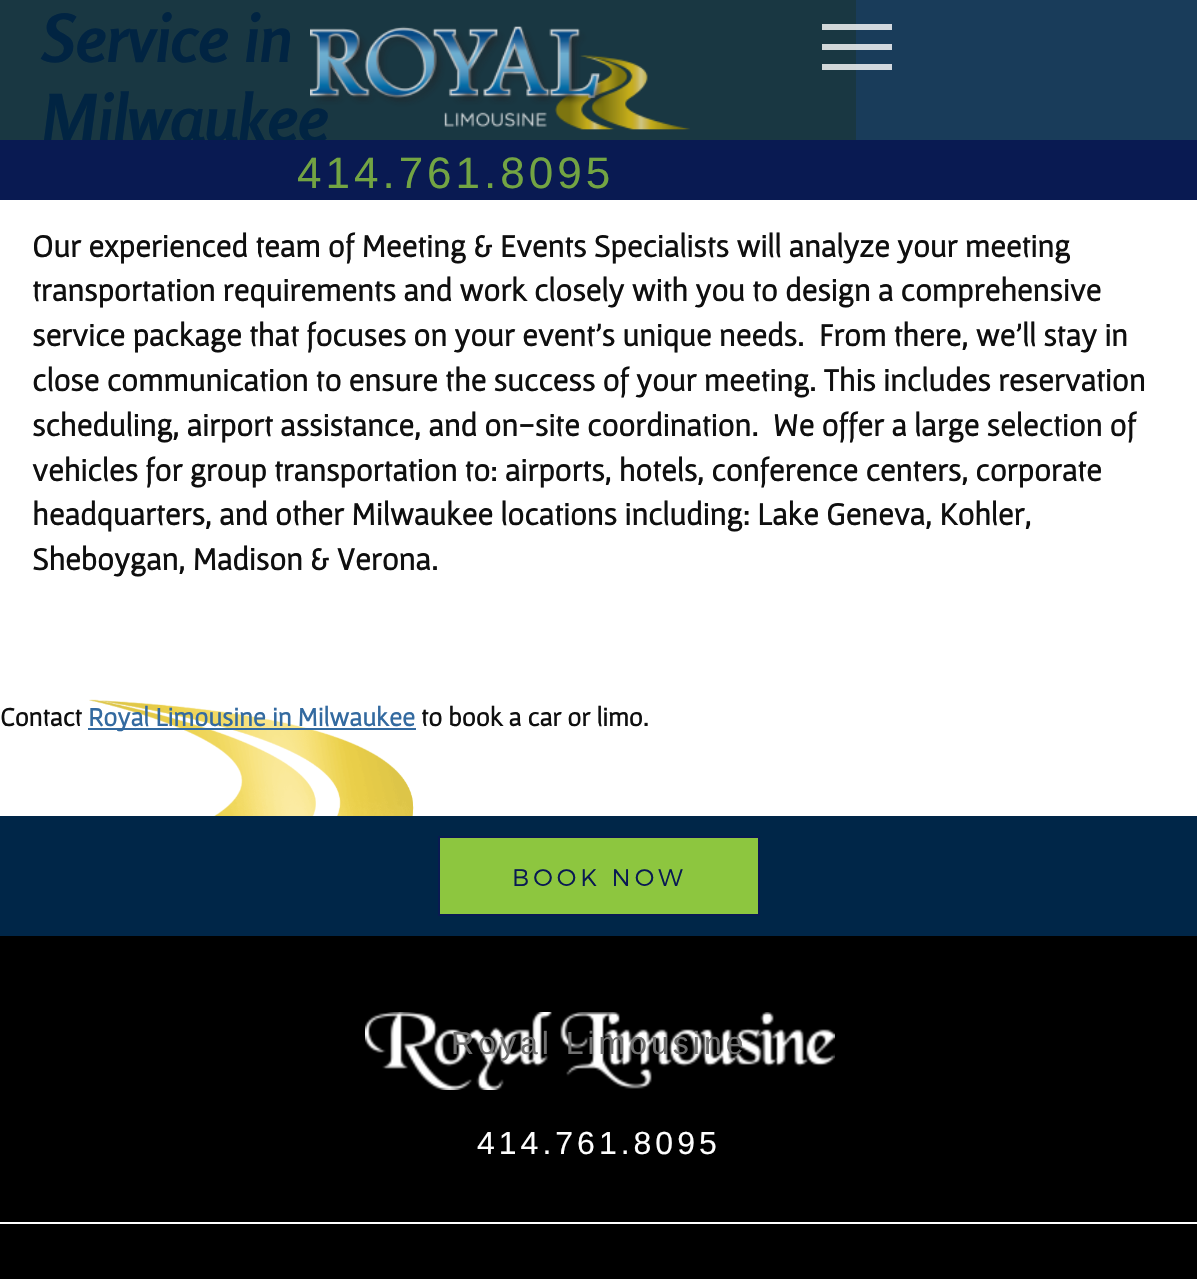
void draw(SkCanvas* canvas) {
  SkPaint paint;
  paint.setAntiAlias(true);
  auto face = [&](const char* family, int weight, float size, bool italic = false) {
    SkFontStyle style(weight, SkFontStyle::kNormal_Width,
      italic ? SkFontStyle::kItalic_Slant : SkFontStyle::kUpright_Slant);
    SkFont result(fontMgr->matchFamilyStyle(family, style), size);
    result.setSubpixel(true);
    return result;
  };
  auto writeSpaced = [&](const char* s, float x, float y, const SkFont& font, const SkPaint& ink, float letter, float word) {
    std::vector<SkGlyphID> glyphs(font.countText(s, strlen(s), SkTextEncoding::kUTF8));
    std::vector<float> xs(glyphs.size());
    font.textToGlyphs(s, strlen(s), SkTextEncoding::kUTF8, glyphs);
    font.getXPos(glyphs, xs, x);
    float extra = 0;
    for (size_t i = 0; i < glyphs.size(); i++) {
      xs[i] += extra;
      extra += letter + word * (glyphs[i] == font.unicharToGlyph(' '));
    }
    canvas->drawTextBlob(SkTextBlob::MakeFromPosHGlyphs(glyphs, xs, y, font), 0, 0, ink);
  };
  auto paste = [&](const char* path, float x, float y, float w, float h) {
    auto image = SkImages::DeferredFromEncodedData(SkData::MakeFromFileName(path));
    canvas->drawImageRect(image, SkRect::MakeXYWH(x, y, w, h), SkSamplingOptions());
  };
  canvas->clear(0xffffffff);
  {
    const struct { float x, y, w, h; SkColor color; } items[] = {
      {856, 0, 341, 140, 0xff193c5a},
      {856, 64, 36, 6, 0xffd1d8de},
      {856, 44, 36, 6, 0xffd1d8de},
      {856, 24, 36, 6, 0xffd1d8de},
    };
    for (auto [x, y, w, h, color] : items) {
      paint.setColor(color);
      canvas->drawRect(SkRect::MakeXYWH(x, y, w, h), paint);
    }
  }
  paste("img/1.png", 89, 699, 325, 117);
  {
    const struct { float x, y, w, h; SkColor color; } items[] = {
      {0, 0, 10, 140, 0xff193742},
      {10, 0, 846, 140, 0xff193742},
      {822, 64, 34, 6, 0xffd1d7d9},
      {822, 44, 34, 6, 0xffd1d7d9},
      {822, 24, 34, 6, 0xffd1d7d9},
      {88, 728, 328, 2, 0xff336aa0},
      {0, 816, 1197, 120, 0xff002648},
    };
    for (auto [x, y, w, h, color] : items) {
      paint.setColor(color);
      canvas->drawRect(SkRect::MakeXYWH(x, y, w, h), paint);
    }
  }
  paint.setColor(0xff8dc63f);
  canvas->drawRect(SkRect::MakeXYWH(439, 837, 320, 78), paint);
  paint.setStroke(true);
  paint.setStrokeWidth(2);
  paint.setColor(0xff091a52);
  canvas->drawRect(SkRect::MakeXYWH(439, 837, 320, 78), paint);
  paint.setStroke(false);
  paint.setColor(0xff000000);
  canvas->drawRect(SkRect::MakeXYWH(0, 936, 1197, 343), paint);
  paste("img/3.png", 365, 1012, 470, 78);
  paint.setColor(0xffffffff);
  canvas->drawRect(SkRect::MakeXYWH(0, 1222, 1197, 2), paint);
  auto f0 = face("Rosario", 700, 66, true);
  paint.setColor(0xff012442);
  canvas->drawString("Service in", 43, 62, f0, paint);
  canvas->drawString("Milwaukee", 43, 142, f0, paint);
  auto f1 = face("Gafata", 700, 32);
  paint.setColor(0xff0f0f0f);
  {
    const struct { const char* s; float x, y; } items[] = {
      {"Our experienced team of Meeting & Events Specialists will analyze your meeting", 32, 257},
      {"transportation requirements and work closely with you to design a comprehensive", 32, 301},
      {"service package that focuses on your event's unique needs.  From there, we'll stay in", 32, 346},
      {"close communication to ensure the success of your meeting. This includes reservation", 32, 391},
      {"scheduling, airport assistance, and on-site coordination.  We offer a large selection of", 32, 436},
      {"vehicles for group transportation to: airports, hotels, conference centers, corporate", 32, 481},
      {"headquarters, and other Milwaukee locations including: Lake Geneva, Kohler,", 32, 525},
      {"Sheboygan, Madison & Verona.", 32, 570},
    };
    for (auto [s, x, y] : items) {
      canvas->drawString(s, x, y, f1, paint);
    }
  }
  auto f2 = face("Gafata", 700, 26.5f);
  canvas->drawString("Contact", 0, 726, f2, paint);
  paint.setColor(0xff336aa0);
  canvas->drawString("Royal Limousine in Milwaukee", 88, 726, f2, paint);
  paint.setColor(0xff0f0f0f);
  canvas->drawString("to book a car or limo.", 421, 726, f2, paint);
  paste("img/2.png", 310, 26, 380, 104);
  paint.setColor(0xff091a52);
  canvas->drawRect(SkRect::MakeXYWH(0, 140, 1197, 60), paint);
  auto f3 = face("Liberation Sans", 400, 44);
  paint.setColor(0xff73a443);
  writeSpaced("414.761.8095", 297, 188, f3, paint, 4, 0);
  auto f4 = face("Montserrat", 300, 24);
  paint.setColor(0xff091a52);
  writeSpaced("BOOK NOW", 512, 886, f4, paint, 4, 0);
  auto f5 = face("Liberation Sans", 400, 32);
  paint.setColor(0xff707070);
  writeSpaced("Royal Limousine", 451, 1054, f5, paint, 4, 0);
  paint.setColor(0xfffefefe);
  writeSpaced("414.761.8095", 477, 1154, f5, paint, 4, 0);
}
